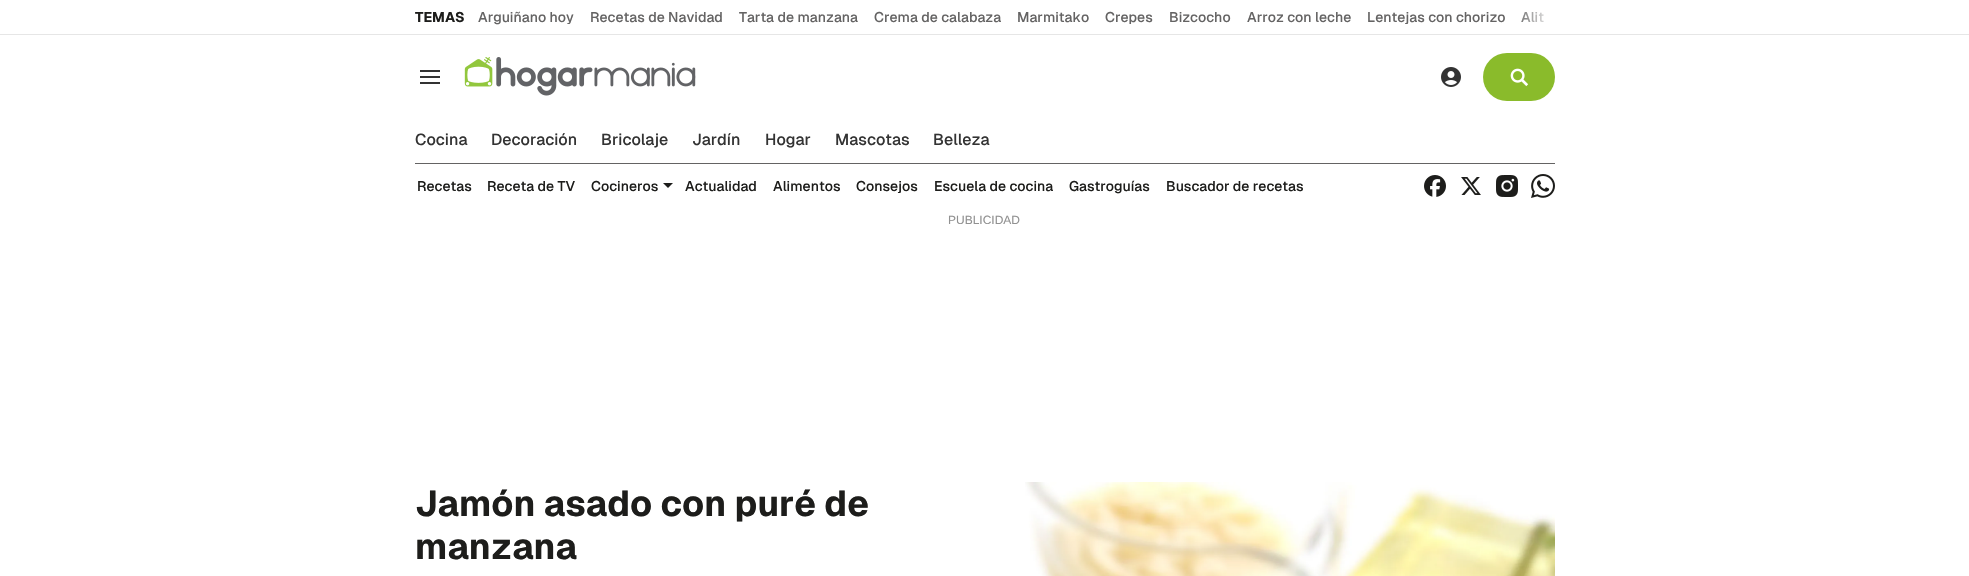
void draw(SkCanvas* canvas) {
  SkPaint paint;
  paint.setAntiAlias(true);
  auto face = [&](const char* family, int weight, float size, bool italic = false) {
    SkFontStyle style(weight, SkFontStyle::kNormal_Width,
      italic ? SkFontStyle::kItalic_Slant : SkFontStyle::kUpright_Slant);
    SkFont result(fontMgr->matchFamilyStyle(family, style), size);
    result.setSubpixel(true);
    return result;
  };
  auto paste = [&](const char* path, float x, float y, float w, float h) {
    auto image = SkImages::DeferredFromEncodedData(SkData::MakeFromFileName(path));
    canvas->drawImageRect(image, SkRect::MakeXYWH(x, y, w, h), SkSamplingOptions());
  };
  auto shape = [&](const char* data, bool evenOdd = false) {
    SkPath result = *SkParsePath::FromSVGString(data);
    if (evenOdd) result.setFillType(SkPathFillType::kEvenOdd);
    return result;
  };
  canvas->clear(0xffffffff);
  {
    const struct { float x, y, w, h; SkColor color; } items[] = {
      {0, 34, 1969, 1, 0xffe6e6e6},
      {420, 70, 20, 2, 0xff333333},
      {420, 76, 20, 2, 0xff333333},
      {420, 82, 20, 2, 0xff333333},
    };
    for (auto [x, y, w, h, color] : items) {
      paint.setColor(color);
      canvas->drawRect(SkRect::MakeXYWH(x, y, w, h), paint);
    }
  }
  paste("img/1.png", 464, 57, 232, 39);
  paste("img/2.png", 1441, 67, 20, 20);
  paint.setColor(0xff8abb2b);
  canvas->drawRoundRect(SkRect::MakeXYWH(1483, 53, 72, 48), 24, 24, paint);
  paste("img/3.png", 1510, 68, 19, 19);
  paint.setColor(0xff646363);
  canvas->drawRect(SkRect::MakeXYWH(415, 163, 1140, 1), paint);
  paint.setColor(0xff1d1d1b);
  canvas->drawPath(shape("M663 183L668 188L673 183Z"), paint);
  paste("img/4.png", 1424, 175, 22, 22);
  paste("img/5.png", 1461, 177, 20, 18);
  paste("img/6.png", 1496, 175, 22, 22);
  paste("img/7.png", 1531, 174, 24, 24);
  paste("img/8.png", 1025, 482, 530, 94);
  auto f0 = face("Geist", 700, 14);
  canvas->drawString("TEMAS", 415, 22, f0, paint);
  auto f1 = face("Geist", 500, 14);
  paint.setColor(0xff646363);
  {
    const struct { const char* s; float x, y; } items[] = {
      {"Arguiñano hoy", 478, 22},
      {"Recetas de Navidad", 590, 22},
      {"Tarta de manzana", 739, 22},
      {"Crema de calabaza", 874, 22},
      {"Marmitako", 1017, 22},
      {"Crepes", 1105, 22},
      {"Bizcocho", 1169, 22},
      {"Arroz con leche", 1247, 22},
      {"Lentejas con chorizo", 1367, 22},
      {"Alit", 1521, 22},
    };
    for (auto [s, x, y] : items) {
      canvas->drawString(s, x, y, f1, paint);
    }
  }
  {
    const SkColor colors[] = {0x00ffffff, 0xffffffff};
    const float stops[] = {0, 1};
    const SkPoint ends[] = {{1515, 17}, {1555, 17}};
    paint.setShader(SkGradientShader::MakeLinear(ends, colors, stops, 2, SkTileMode::kClamp));
    paint.setAlpha(255);
  }
  canvas->drawRect(SkRect::MakeXYWH(1521, 12, 23, 10), paint);
  auto f2 = face("Geist", 500, 16);
  paint.setShader(nullptr);
  paint.setColor(0xff333333);
  {
    const struct { const char* s; float x, y; } items[] = {
      {"Cocina", 415, 145},
      {"Decoración", 491, 145},
      {"Bricolaje", 601, 145},
      {"Jardín", 692, 145},
      {"Hogar", 765, 145},
      {"Mascotas", 835, 145},
      {"Belleza", 933, 145},
    };
    for (auto [s, x, y] : items) {
      canvas->drawString(s, x, y, f2, paint);
    }
  }
  paint.setColor(0xff1d1d1b);
  {
    const struct { const char* s; float x, y; } items[] = {
      {"Recetas", 417, 191},
      {"Receta de TV", 487, 191},
      {"Cocineros", 591, 191},
      {"Actualidad", 685, 191},
      {"Alimentos", 773, 191},
      {"Consejos", 856, 191},
      {"Escuela de cocina", 934, 191},
      {"Gastroguías", 1069, 191},
      {"Buscador de recetas", 1166, 191},
    };
    for (auto [s, x, y] : items) {
      canvas->drawString(s, x, y, f1, paint);
    }
  }
  auto f3 = face("Liberation Sans", 400, 12);
  paint.setColor(0xff919191);
  canvas->drawString("PUBLICIDAD", 948, 224, f3, paint);
  auto f4 = face("Geist", 700, 36);
  paint.setColor(0xff1d1d1b);
  canvas->drawString("Jamón asado con puré de", 415, 516, f4, paint);
  canvas->drawString("manzana", 415, 559, f4, paint);
}
